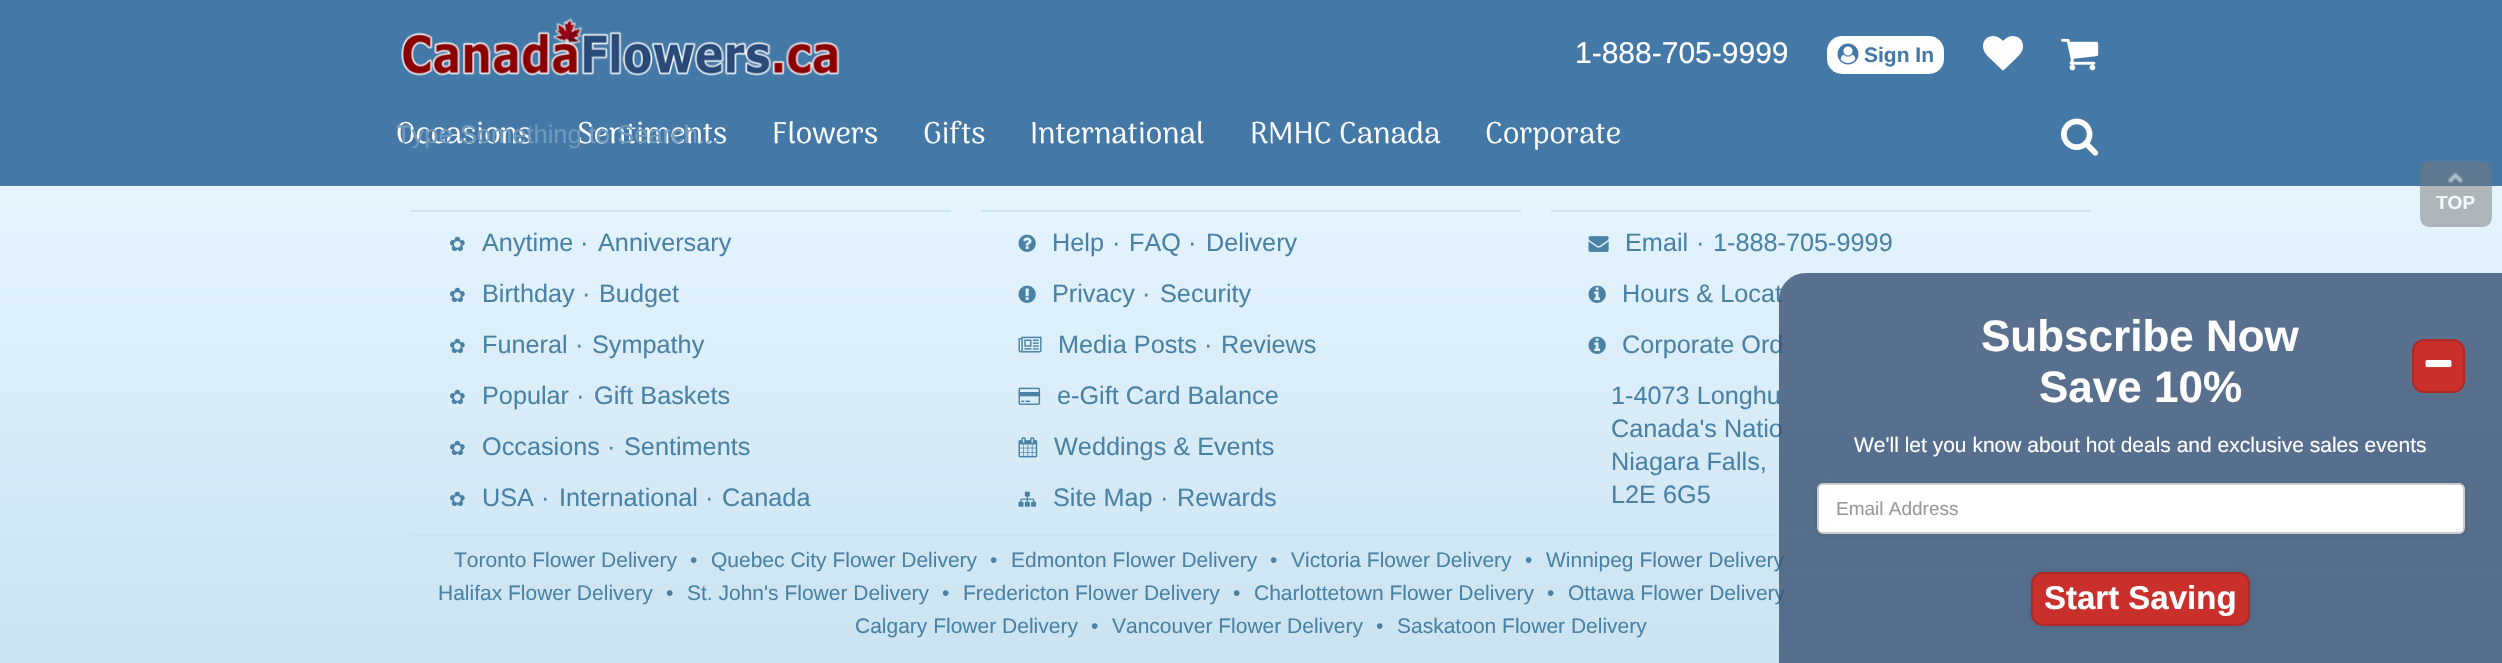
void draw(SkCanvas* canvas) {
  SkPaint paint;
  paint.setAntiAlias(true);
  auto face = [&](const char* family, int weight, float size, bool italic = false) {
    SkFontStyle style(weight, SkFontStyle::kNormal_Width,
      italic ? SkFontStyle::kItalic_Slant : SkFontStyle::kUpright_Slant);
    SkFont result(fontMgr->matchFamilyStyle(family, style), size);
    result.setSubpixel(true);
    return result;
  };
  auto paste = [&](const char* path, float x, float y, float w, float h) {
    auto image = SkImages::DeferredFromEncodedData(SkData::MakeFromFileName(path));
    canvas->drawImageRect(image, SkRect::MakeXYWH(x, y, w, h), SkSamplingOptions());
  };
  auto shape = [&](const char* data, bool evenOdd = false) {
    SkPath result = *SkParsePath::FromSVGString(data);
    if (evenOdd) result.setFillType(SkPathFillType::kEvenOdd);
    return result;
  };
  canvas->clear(0xffffffff);
  paint.setColor(0xff4479a7);
  canvas->drawRect(SkRect::MakeXYWH(0, 0, 2502, 186), paint);
  paste("img/1.png", 401, 18, 439, 58);
  paint.setColor(0xffffffff);
  canvas->drawRoundRect(SkRect::MakeXYWH(1827, 36, 117, 38), 15, 15, paint);
  paste("img/2.png", 1837, 43, 22, 22);
  paste("img/3.png", 1983, 36, 40, 35);
  paste("img/4.png", 2061, 38, 38, 33);
  paste("img/5.png", 2061, 118, 38, 38);
  {
    const SkColor colors[] = {0xffe8f6ff, 0xffcae3f0};
    const float stops[] = {0, 1};
    const SkPoint ends[] = {{1251, 138}, {1251, 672}};
    paint.setShader(SkGradientShader::MakeLinear(ends, colors, stops, 2, SkTileMode::kClamp));
    paint.setAlpha(255);
  }
  canvas->drawRect(SkRect::MakeXYWH(0, 186, 2502, 477), paint);
  paint.setShader(nullptr);
  paint.setColor(0xffcbe3f0);
  canvas->drawRect(SkRect::MakeXYWH(411, 210, 540, 2), paint);
  canvas->drawRect(SkRect::MakeXYWH(981, 210, 540, 2), paint);
  paste("img/6.png", 1018, 234, 18, 18);
  paste("img/7.png", 1018, 285, 18, 18);
  paste("img/8.png", 1018, 336, 24, 17);
  paste("img/9.png", 1018, 387, 23, 18);
  paste("img/10.png", 1018, 437, 20, 21);
  paste("img/11.png", 1018, 491, 19, 16);
  canvas->drawRect(SkRect::MakeXYWH(1551, 210, 540, 2), paint);
  paste("img/12.png", 1588, 236, 21, 16);
  paste("img/13.png", 1588, 285, 18, 18);
  paste("img/14.png", 1588, 336, 18, 18);
  canvas->drawRect(SkRect::MakeXYWH(411, 534, 1680, 2), paint);
  paint.setColor(0x80777777);
  canvas->drawRoundRect(SkRect::MakeXYWH(2420, 161, 72, 66), 9, 9, paint);
  paste("img/15.png", 2448, 172, 15, 11);
  auto f0 = face("Liberation Sans", 400, 30);
  paint.setColor(0xffffffff);
  canvas->drawString("1-888-705-9999", 1575, 63, f0, paint);
  auto f1 = face("Liberation Sans", 700, 21);
  paint.setColor(0xff4479a7);
  canvas->drawString("Sign In", 1864, 62, f1, paint);
  auto f2 = face("Arima", 400, 30);
  paint.setColor(0xffffffff);
  {
    const struct { const char* s; float x, y; } items[] = {
      {"Occasions", 396, 143},
      {"Sentiments", 577, 143},
      {"Flowers", 772, 143},
      {"Gifts", 923, 143},
      {"International", 1030, 143},
      {"RMHC Canada", 1250, 143},
      {"Corporate", 1485, 143},
    };
    for (auto [s, x, y] : items) {
      canvas->drawString(s, x, y, f2, paint);
    }
  }
  auto f3 = face("Liberation Sans", 400, 25.5f);
  paint.setColor(0xff7199bc);
  canvas->drawString("Type Something to Search...", 396, 143, f3, paint);
  auto f4 = face("DejaVu Sans", 400, 20);
  paint.setColor(0xff4a82a6);
  canvas->drawString("✿", 449, 251, f4, paint);
  auto f5 = face("Liberation Sans", 400, 25.25f);
  {
    const struct { const char* s; float x, y; } items[] = {
      {"Anytime", 482, 251},
      {"·", 580, 251},
      {"Anniversary", 598, 251},
    };
    for (auto [s, x, y] : items) {
      canvas->drawString(s, x, y, f5, paint);
    }
  }
  canvas->drawString("✿", 449, 302, f4, paint);
  {
    const struct { const char* s; float x, y; } items[] = {
      {"Birthday", 482, 302},
      {"·", 582, 302},
      {"Budget", 599, 302},
    };
    for (auto [s, x, y] : items) {
      canvas->drawString(s, x, y, f5, paint);
    }
  }
  canvas->drawString("✿", 449, 353, f4, paint);
  {
    const struct { const char* s; float x, y; } items[] = {
      {"Funeral", 482, 353},
      {"·", 575, 353},
      {"Sympathy", 592, 353},
    };
    for (auto [s, x, y] : items) {
      canvas->drawString(s, x, y, f5, paint);
    }
  }
  canvas->drawString("✿", 449, 404, f4, paint);
  {
    const struct { const char* s; float x, y; } items[] = {
      {"Popular", 482, 404},
      {"·", 576, 404},
      {"Gift Baskets", 594, 404},
    };
    for (auto [s, x, y] : items) {
      canvas->drawString(s, x, y, f5, paint);
    }
  }
  canvas->drawString("✿", 449, 455, f4, paint);
  {
    const struct { const char* s; float x, y; } items[] = {
      {"Occasions", 482, 455},
      {"·", 607, 455},
      {"Sentiments", 624, 455},
    };
    for (auto [s, x, y] : items) {
      canvas->drawString(s, x, y, f5, paint);
    }
  }
  canvas->drawString("✿", 449, 506, f4, paint);
  {
    const struct { const char* s; float x, y; } items[] = {
      {"USA", 482, 506},
      {"·", 541, 506},
      {"International", 559, 506},
      {"·", 705, 506},
      {"Canada", 722, 506},
      {"Help", 1052, 251},
      {"·", 1112, 251},
      {"FAQ", 1129, 251},
      {"·", 1188, 251},
      {"Delivery", 1206, 251},
      {"Privacy", 1052, 302},
      {"·", 1142, 302},
      {"Security", 1160, 302},
      {"Media Posts", 1058, 353},
      {"·", 1204, 353},
      {"Reviews", 1221, 353},
      {"e-Gift Card Balance", 1057, 404},
      {"Weddings & Events", 1054, 455},
      {"Site Map", 1053, 506},
      {"·", 1160, 506},
      {"Rewards", 1177, 506},
      {"Email", 1625, 251},
      {"·", 1696, 251},
      {"1-888-705-9999", 1713, 251},
      {"Hours & Locat", 1622, 302},
      {"Corporate Ord", 1622, 353},
      {"1-4073 Longhu", 1611, 404},
      {"Canada's Natio", 1611, 437},
      {"Niagara Falls,", 1611, 470},
      {"L2E 6G5", 1611, 503},
    };
    for (auto [s, x, y] : items) {
      canvas->drawString(s, x, y, f5, paint);
    }
  }
  auto f6 = face("Liberation Sans", 400, 21);
  {
    const struct { const char* s; float x, y; } items[] = {
      {"Toronto Flower Delivery", 454, 567},
      {"•", 690, 567},
      {"Quebec City Flower Delivery", 711, 567},
      {"•", 990, 567},
      {"Edmonton Flower Delivery", 1011, 567},
      {"•", 1270, 567},
      {"Victoria Flower Delivery", 1291, 567},
      {"•", 1525, 567},
      {"Winnipeg Flower Delivery", 1546, 567},
      {"Halifax Flower Delivery", 438, 600},
      {"•", 666, 600},
      {"St. John's Flower Delivery", 687, 600},
      {"•", 942, 600},
      {"Fredericton Flower Delivery", 963, 600},
      {"•", 1233, 600},
      {"Charlottetown Flower Delivery", 1254, 600},
      {"•", 1547, 600},
      {"Ottawa Flower Delivery", 1568, 600},
      {"Calgary Flower Delivery", 855, 633},
      {"•", 1091, 633},
      {"Vancouver Flower Delivery", 1112, 633},
      {"•", 1376, 633},
      {"Saskatoon Flower Delivery", 1397, 633},
    };
    for (auto [s, x, y] : items) {
      canvas->drawString(s, x, y, f6, paint);
    }
  }
  auto f7 = face("Liberation Sans", 700, 19);
  paint.setColor(0xfff2f9fe);
  canvas->drawString("TOP", 2436, 209, f7, paint);
  paint.setColor(0xcc375073);
  canvas->drawPath(shape("M1806 273H2502V663H1779V300C1779 285 1791 273 1806 273Z"), paint);
  auto f8 = face("Liberation Sans", 700, 44);
  paint.setColor(0xffffffff);
  canvas->drawString("Subscribe Now", 1981, 351, f8, paint);
  canvas->drawString("Save 10%", 2039, 402, f8, paint);
  paint.setColor(0xffc9302c);
  canvas->drawRoundRect(SkRect::MakeXYWH(2413, 340, 51, 52), 11, 11, paint);
  paint.setStroke(true);
  paint.setStrokeWidth(2);
  paint.setColor(0xffac2925);
  canvas->drawRoundRect(SkRect::MakeXYWH(2413, 340, 51, 52), 11, 11, paint);
  paste("img/16.png", 2425, 360, 27, 8);
  paint.setStroke(false);
  paint.setColor(0xffffffff);
  canvas->drawString("We'll let you know about hot deals and exclusive sales events", 1854, 452, f6, paint);
  paint.setColor(0x1a000000);
  paint.setMaskFilter(SkMaskFilter::MakeBlur(kNormal_SkBlurStyle, 3));
  canvas->drawRoundRect(SkRect::MakeXYWH(1817, 483, 648, 51), 6, 6, paint);
  paint.setMaskFilter(nullptr);
  paint.setColor(0xffffffff);
  canvas->drawRoundRect(SkRect::MakeXYWH(1818, 484, 646, 49), 5, 5, paint);
  paint.setStroke(true);
  paint.setColor(0xffcccccc);
  canvas->drawRoundRect(SkRect::MakeXYWH(1818, 484, 646, 49), 5, 5, paint);
  auto f9 = face("Liberation Sans", 400, 19);
  paint.setStroke(false);
  paint.setColor(0xff999999);
  canvas->drawString("Email Address", 1836, 515, f9, paint);
  paint.setColor(0x1a000000);
  paint.setMaskFilter(SkMaskFilter::MakeBlur(kNormal_SkBlurStyle, 3));
  canvas->drawRoundRect(SkRect::MakeXYWH(2031, 572, 219, 54), 12, 12, paint);
  paint.setMaskFilter(nullptr);
  paint.setColor(0xffc9302c);
  canvas->drawRoundRect(SkRect::MakeXYWH(2032, 573, 217, 52), 11, 11, paint);
  paint.setStroke(true);
  paint.setColor(0xffac2925);
  canvas->drawRoundRect(SkRect::MakeXYWH(2032, 573, 217, 52), 11, 11, paint);
  auto f10 = face("Liberation Sans", 700, 33);
  paint.setStroke(false);
  paint.setColor(0xffffffff);
  canvas->drawString("Start Saving", 2044, 609, f10, paint);
}
